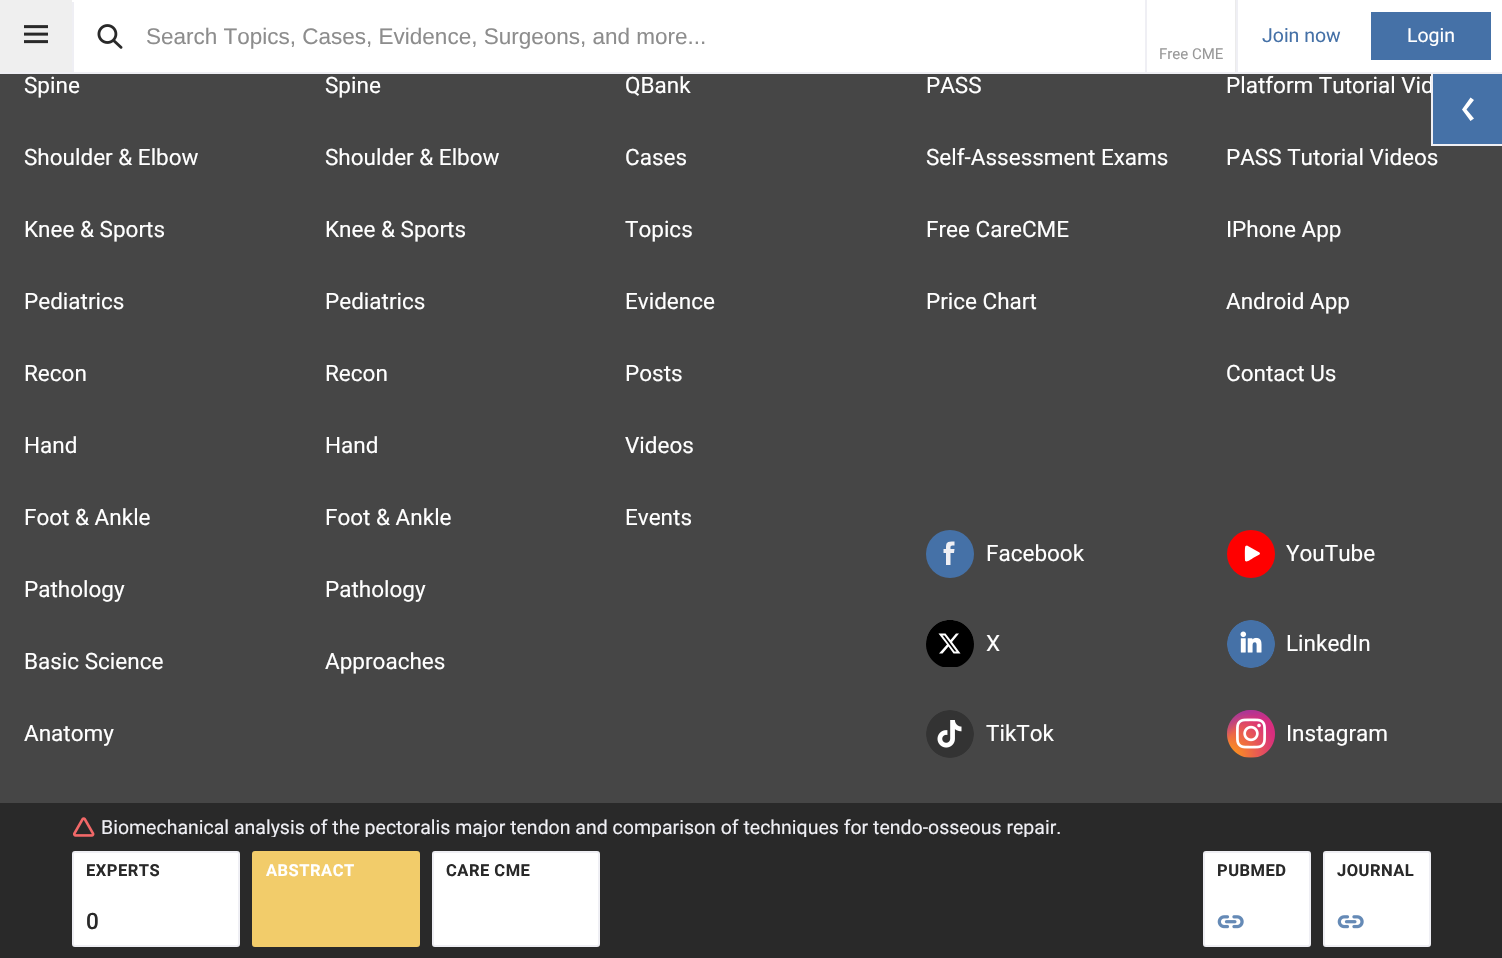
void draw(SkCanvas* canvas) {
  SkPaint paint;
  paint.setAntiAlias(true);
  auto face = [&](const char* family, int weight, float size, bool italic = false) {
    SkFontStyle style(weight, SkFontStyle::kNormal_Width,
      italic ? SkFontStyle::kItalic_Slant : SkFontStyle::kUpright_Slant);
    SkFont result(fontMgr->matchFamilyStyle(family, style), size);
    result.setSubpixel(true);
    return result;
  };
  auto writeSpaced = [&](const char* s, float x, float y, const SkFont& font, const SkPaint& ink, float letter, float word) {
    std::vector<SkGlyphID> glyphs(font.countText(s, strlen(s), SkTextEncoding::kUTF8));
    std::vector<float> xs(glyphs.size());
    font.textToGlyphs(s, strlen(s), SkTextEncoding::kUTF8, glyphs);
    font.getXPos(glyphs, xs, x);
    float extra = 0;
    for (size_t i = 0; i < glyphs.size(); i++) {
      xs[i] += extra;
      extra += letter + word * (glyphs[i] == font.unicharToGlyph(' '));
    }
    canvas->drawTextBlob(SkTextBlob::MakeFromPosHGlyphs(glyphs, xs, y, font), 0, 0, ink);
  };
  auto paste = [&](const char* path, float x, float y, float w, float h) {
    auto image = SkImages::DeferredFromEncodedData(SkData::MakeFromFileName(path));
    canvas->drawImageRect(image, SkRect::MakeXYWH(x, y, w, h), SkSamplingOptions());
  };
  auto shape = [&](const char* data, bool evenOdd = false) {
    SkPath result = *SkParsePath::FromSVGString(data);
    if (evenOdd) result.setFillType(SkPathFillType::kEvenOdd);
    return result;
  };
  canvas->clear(0xff464646);
  {
    const struct { float x, y, w, h; SkColor color; } items[] = {
      {72, 0, 1430, 72, 0xffffffff},
      {0, 72, 1502, 2, 0xffefeff4},
      {0, 0, 72, 72, 0xffefefef},
    };
    for (auto [x, y, w, h, color] : items) {
      paint.setColor(color);
      canvas->drawRect(SkRect::MakeXYWH(x, y, w, h), paint);
    }
  }
  paste("img/1.png", 24, 25, 24, 19);
  paint.setColor(0xffefeff4);
  canvas->drawRect(SkRect::MakeXYWH(72, 2, 2, 70), paint);
  paste("img/2.png", 97, 24, 26, 25);
  {
    const struct { float x, y, w, h; SkColor color; } items[] = {
      {1236, 0, 2, 72, 0xffefeff4},
      {1371, 12, 120, 48, 0xff4571a7},
      {1145, 0, 2, 72, 0xffefeff4},
      {1235, 0, 1, 72, 0xffebebeb},
    };
    for (auto [x, y, w, h, color] : items) {
      paint.setColor(color);
      canvas->drawRect(SkRect::MakeXYWH(x, y, w, h), paint);
    }
  }
  paint.setColor(0xff4571a7);
  canvas->drawCircle(950, 554, 24, paint);
  paint.setColor(0xffefeff4);
  canvas->drawPath(shape("M946 565H950.5V553H954L954.5 549H950.5C950.5 545.5 950.5 545.5 954.5 545.5V541.5C946.5 541.5 946 542 946 549H943.5V553H946Z"), paint);
  canvas->save();
  canvas->clipPath(shape("M950 620C963.5 620 974 630.5 974 644C974 657.5 963.5 668 950 668C936.5 668 926 657.5 926 644C926 630.5 936.5 620 950 620Z"), true);
  paint.setColor(0xff000000);
  canvas->drawPath(shape("M950 620C963.5 620 974 630.5 974 644V656C974 662 969 667 963 667H937C931 667 926 662 926 656V644C926 630.5 936.5 620 950 620Z"), paint);
  canvas->restore();
  paint.setColor(0xffffffff);
  canvas->drawPath(shape("M956 633.5H959L952 642L960.5 653.5H953.5L948.5 646.5L942.5 653.5H939L947 644.5L938.5 633.5H945.5L950.5 640ZM954.5 651.5H956.5L944.5 635.5H942.5Z"), paint);
  paste("img/3.png", 926, 710, 48, 48);
  paint.setColor(0xffff0000);
  canvas->drawCircle(1251, 554, 24, paint);
  paint.setColor(0xffffffff);
  canvas->drawPath(shape("M1245 560C1245 558 1244.5 547 1245.5 546L1247 545.5L1259.5 552.5L1260 553.5L1259.5 554.5L1253 558C1252.5 558.5 1245 564 1245 560Z"), paint);
  paste("img/4.png", 1227, 620, 48, 48);
  paste("img/5.png", 1227, 710, 48, 48);
  paint.setColor(0xff4571a7);
  canvas->drawRect(SkRect::MakeXYWH(1433, 74, 69, 70), paint);
  paint.setColor(0xffefeff4);
  canvas->drawRect(SkRect::MakeXYWH(1431, 144, 71, 2), paint);
  paint.setColor(0xffffffff);
  canvas->drawPath(shape("M1474 100L1470.5 97.5L1462 109.5L1470.5 121L1474 118.5L1466.5 109.5Z"), paint);
  paint.setColor(0xff292929);
  canvas->drawRect(SkRect::MakeXYWH(0, 803, 1502, 155), paint);
  paste("img/6.png", 73, 817, 22, 20);
  paint.setColor(0xffffffff);
  canvas->drawRoundRect(SkRect::MakeXYWH(73, 852, 166, 94), 2, 2, paint);
  paint.setStroke(true);
  paint.setStrokeWidth(2);
  paint.setColor(0xffefeff4);
  canvas->drawRoundRect(SkRect::MakeXYWH(73, 852, 166, 94), 2, 2, paint);
  paint.setStroke(false);
  paint.setColor(0xfff2cc6a);
  canvas->drawRoundRect(SkRect::MakeXYWH(253, 852, 166, 94), 2, 2, paint);
  paint.setStroke(true);
  canvas->drawRoundRect(SkRect::MakeXYWH(253, 852, 166, 94), 2, 2, paint);
  paint.setStroke(false);
  paint.setColor(0xffffffff);
  canvas->drawRoundRect(SkRect::MakeXYWH(433, 852, 166, 94), 2, 2, paint);
  paint.setStroke(true);
  paint.setColor(0xffefeff4);
  canvas->drawRoundRect(SkRect::MakeXYWH(433, 852, 166, 94), 2, 2, paint);
  paint.setStroke(false);
  paint.setColor(0xffffffff);
  canvas->drawRoundRect(SkRect::MakeXYWH(1204, 852, 106, 94), 2, 2, paint);
  paint.setStroke(true);
  paint.setColor(0xffefeff4);
  canvas->drawRoundRect(SkRect::MakeXYWH(1204, 852, 106, 94), 2, 2, paint);
  paste("img/7.png", 1217, 915, 27, 14);
  paint.setStroke(false);
  paint.setColor(0xffffffff);
  canvas->drawRoundRect(SkRect::MakeXYWH(1324, 852, 106, 94), 2, 2, paint);
  paint.setStroke(true);
  paint.setColor(0xffefeff4);
  canvas->drawRoundRect(SkRect::MakeXYWH(1324, 852, 106, 94), 2, 2, paint);
  paste("img/7.png", 1337, 915, 27, 14);
  auto f0 = face("Liberation Sans", 400, 22.5f);
  paint.setStroke(false);
  paint.setColor(0xff8d8d8d);
  canvas->drawString("Search Topics, Cases, Evidence, Surgeons, and more...", 146, 44, f0, paint);
  auto f1 = face("Roboto", 400, 19.5f);
  paint.setColor(0xff4571a7);
  canvas->drawString("Join now", 1262, 42, f1, paint);
  paint.setColor(0xffffffff);
  canvas->drawString("Login", 1407, 42, f1, paint);
  auto f2 = face("Roboto", 400, 15);
  paint.setColor(0xff999999);
  canvas->drawString("Free CME", 1159, 59, f2, paint);
  auto f3 = face("Roboto", 400, 22.5f);
  paint.setColor(0xffffffff);
  {
    const struct { const char* s; float x, y; } items[] = {
      {"Spine", 24, 93},
      {"Shoulder & Elbow", 24, 165},
      {"Knee & Sports", 24, 237},
      {"Pediatrics", 24, 309},
      {"Recon", 24, 381},
      {"Hand", 24, 453},
      {"Foot & Ankle", 24, 525},
      {"Pathology", 24, 597},
      {"Basic Science", 24, 669},
      {"Anatomy", 24, 741},
      {"Spine", 325, 93},
      {"Shoulder & Elbow", 325, 165},
      {"Knee & Sports", 325, 237},
      {"Pediatrics", 325, 309},
      {"Recon", 325, 381},
      {"Hand", 325, 453},
      {"Foot & Ankle", 325, 525},
      {"Pathology", 325, 597},
      {"Approaches", 325, 669},
      {"QBank", 625, 93},
      {"Cases", 625, 165},
      {"Topics", 625, 237},
      {"Evidence", 625, 309},
      {"Posts", 625, 381},
      {"Videos", 625, 453},
      {"Events", 625, 525},
      {"PASS", 926, 93},
      {"Self-Assessment Exams", 926, 165},
      {"Free CareCME", 926, 237},
      {"Price Chart", 926, 309},
      {"Platform Tutorial Vid", 1226, 93},
      {"PASS Tutorial Videos", 1226, 165},
      {"IPhone App", 1226, 237},
      {"Android App", 1226, 309},
      {"Contact Us", 1226, 381},
      {"Facebook", 986, 561},
      {"X", 986, 651},
      {"TikTok", 986, 741},
      {"YouTube", 1286, 561},
      {"LinkedIn", 1286, 651},
      {"Instagram", 1286, 741},
    };
    for (auto [s, x, y] : items) {
      canvas->drawString(s, x, y, f3, paint);
    }
  }
  paint.setColor(0xffefeff4);
  canvas->drawRect(SkRect::MakeXYWH(1431, 74, 2, 72), paint);
  canvas->save();
  canvas->clipRect(SkRect::MakeXYWH(102, 818, 960, 19));
  canvas->drawString("Biomechanical analysis of the pectoralis major tendon and comparison of techniques for tendo-osseous repair.", 101, 834, f1, paint);
  canvas->restore();
  auto f4 = face("Roboto", 700, 16.5f);
  paint.setColor(0xff292929);
  writeSpaced("EXPERTS", 86, 876, f4, paint, 0.5f, 0);
  auto f5 = face("Roboto", 500, 22.5f);
  writeSpaced("0", 86, 929, f5, paint, 0.5f, 0);
  paint.setColor(0xffffffff);
  writeSpaced("ABSTRACT", 266, 876, f4, paint, 0.5f, 0);
  paint.setColor(0xff292929);
  {
    const struct { const char* s; float x, y; } items[] = {
      {"CARE CME", 446, 876},
      {"PUBMED", 1217, 876},
      {"JOURNAL", 1337, 876},
    };
    for (auto [s, x, y] : items) {
      writeSpaced(s, x, y, f4, paint, 0.5f, 0);
    }
  }
}
